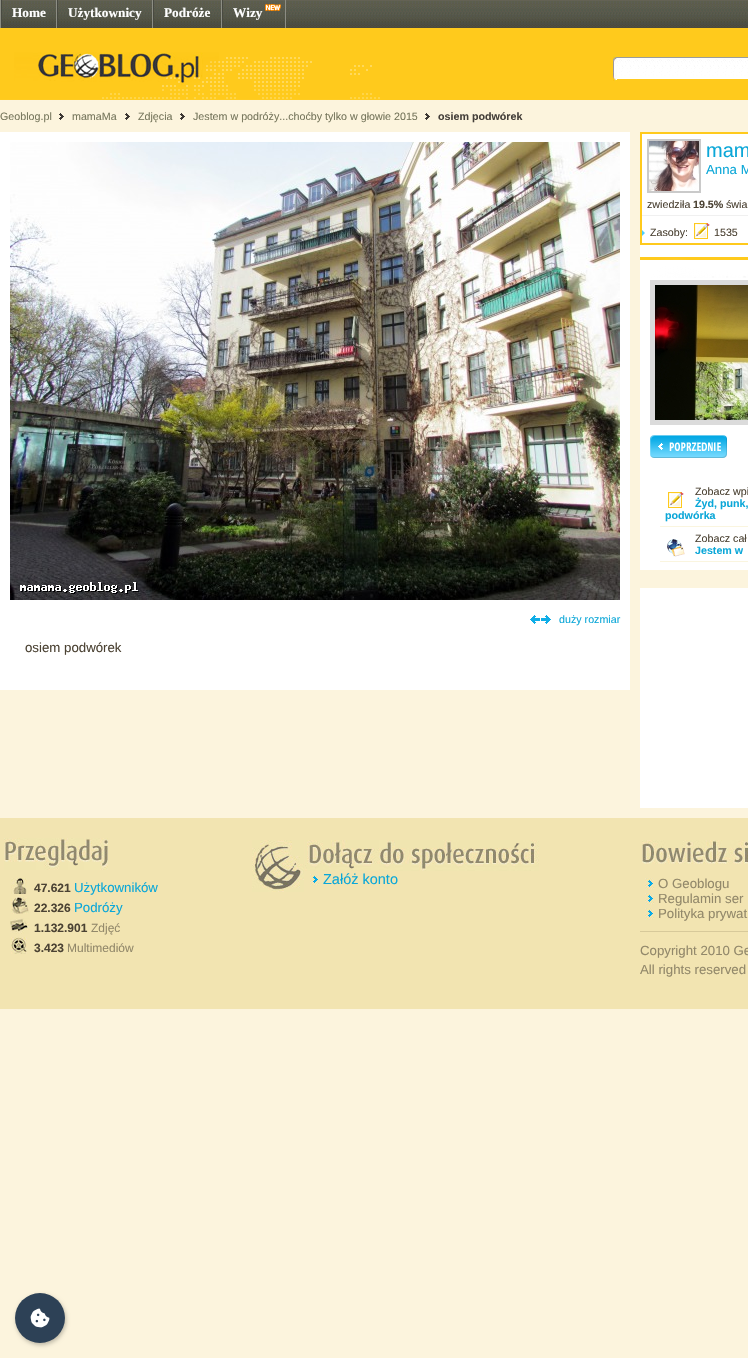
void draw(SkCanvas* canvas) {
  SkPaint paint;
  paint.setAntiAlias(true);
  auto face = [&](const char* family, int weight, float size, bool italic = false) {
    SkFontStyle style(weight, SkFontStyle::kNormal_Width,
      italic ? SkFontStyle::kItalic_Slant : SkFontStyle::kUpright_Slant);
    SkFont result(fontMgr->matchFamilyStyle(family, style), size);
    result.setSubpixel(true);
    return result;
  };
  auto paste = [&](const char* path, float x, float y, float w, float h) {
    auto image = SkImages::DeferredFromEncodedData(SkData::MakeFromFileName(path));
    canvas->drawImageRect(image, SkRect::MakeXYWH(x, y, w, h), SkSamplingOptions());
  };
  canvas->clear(0xfffcf4dd);
  paste("img/1.png", 2, 0, 746, 28);
  {
    const struct { float x, y, w, h; SkColor color; } items[] = {
      {0, 0, 1, 28, 0xff8c8d83},
      {56, 0, 1, 28, 0xff8c8d83},
      {1, 0, 1, 28, 0xff494a41},
      {152, 0, 1, 28, 0xff8c8d83},
      {57, 0, 1, 28, 0xff494a41},
      {221, 0, 1, 28, 0xff8c8d83},
      {153, 0, 1, 28, 0xff494a41},
      {285, 0, 1, 28, 0xff8c8d83},
      {222, 0, 1, 28, 0xff494a41},
    };
    for (auto [x, y, w, h, color] : items) {
      paint.setColor(color);
      canvas->drawRect(SkRect::MakeXYWH(x, y, w, h), paint);
    }
  }
  paste("img/2.png", 265, 4, 16, 7);
  paint.setColor(0xffffca1c);
  canvas->drawRect(SkRect::MakeXYWH(0, 28, 748, 72), paint);
  paste("img/3.png", 0, 52, 380, 48);
  paste("img/4.png", 613, 56, 4, 25);
  paint.setColor(0xffffffff);
  canvas->drawRect(SkRect::MakeXYWH(617, 78, 131, 1), paint);
  paste("img/5.png", 617, 56, 131, 22);
  paste("img/6.png", 59, 113, 5, 7);
  paste("img/6.png", 125, 113, 5, 7);
  paste("img/6.png", 180, 113, 5, 7);
  paste("img/6.png", 425, 113, 5, 7);
  canvas->drawRect(SkRect::MakeXYWH(640, 134, 108, 436), paint);
  paint.setStroke(true);
  paint.setStrokeWidth(2);
  paint.setColor(0xffffca1c);
  canvas->drawRect(SkRect::MakeXYWH(641, 133, 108, 111), paint);
  paint.setStroke(false);
  paint.setColor(0xfff0f0f0);
  canvas->drawRect(SkRect::MakeXYWH(642, 215, 106, 1), paint);
  paint.setStroke(true);
  paint.setColor(0xffcacaca);
  canvas->drawRect(SkRect::MakeXYWH(648, 140, 52, 52), paint);
  paste("img/7.png", 649, 141, 50, 50);
  paste("img/8.png", 642, 230, 3, 6);
  paste("img/9.png", 694, 223, 16, 16);
  paste("img/10.png", 640, 257, 108, 21);
  paint.setStrokeWidth(5);
  paint.setColor(0xffdbdbdb);
  canvas->drawRect(SkRect::MakeXYWH(652.5f, 282.5f, 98, 140), paint);
  paste("img/11.png", 655, 285, 93, 135);
  paste("img/12.png", 650, 435, 77, 23);
  paint.setStroke(false);
  paint.setColor(0xfffaf5df);
  canvas->drawRect(SkRect::MakeXYWH(660, 526, 88, 1), paint);
  paste("img/9.png", 668, 492, 16, 16);
  canvas->drawRect(SkRect::MakeXYWH(660, 561, 88, 1), paint);
  paste("img/13.png", 667, 539, 18, 18);
  paint.setColor(0xffffffff);
  canvas->drawRect(SkRect::MakeXYWH(640, 588, 108, 220), paint);
  canvas->drawRect(SkRect::MakeXYWH(0, 132, 630, 558), paint);
  paste("img/14.png", 10, 142, 610, 458);
  paste("img/15.png", 530, 615, 21, 9);
  paint.setColor(0xfff2e4b1);
  canvas->drawRect(SkRect::MakeXYWH(0, 818, 748, 191), paint);
  paste("img/16.png", 252, 840, 52, 52);
  paste("img/17.png", 305, 840, 234, 31);
  paste("img/18.png", 310, 874, 9, 12);
  paste("img/19.png", 4, 838, 104, 32);
  paste("img/20.png", 11, 878, 16, 16);
  paste("img/21.png", 11, 897, 18, 17);
  paste("img/22.png", 10, 918, 19, 16);
  paste("img/23.png", 11, 937, 16, 17);
  paste("img/24.png", 642, 840, 106, 24);
  paint.setColor(0xffd7c99a);
  canvas->drawRect(SkRect::MakeXYWH(640, 931, 108, 1), paint);
  paste("img/18.png", 645, 878, 9, 12);
  paste("img/18.png", 645, 893, 9, 12);
  paste("img/18.png", 645, 908, 9, 12);
  paint.setColor(0x40000000);
  paint.setMaskFilter(SkMaskFilter::MakeBlur(kNormal_SkBlurStyle, 2));
  canvas->drawRoundRect(SkRect::MakeXYWH(16, 1295, 50, 50), 25, 25, paint);
  paint.setMaskFilter(nullptr);
  paint.setColor(0xff2d4156);
  canvas->drawCircle(40, 1318, 25, paint);
  paste("img/25.png", 30, 1308, 20, 20);
  auto f0 = face("Liberation Serif", 700, 13.25f);
  paint.setColor(0xffffffff);
  {
    const struct { const char* s; float x, y; } items[] = {
      {"Home", 12, 17},
      {"Użytkownicy", 68, 17},
      {"Podróże", 164, 17},
      {"Wizy", 233, 17},
    };
    for (auto [s, x, y] : items) {
      canvas->drawString(s, x, y, f0, paint);
    }
  }
  auto f1 = face("Liberation Sans", 400, 10.7f);
  paint.setColor(0xff76765c);
  {
    const struct { const char* s; float x, y; } items[] = {
      {"Geoblog.pl", 0, 120},
      {"mamaMa", 72, 120},
      {"Zdjęcia", 138, 120},
      {"Jestem w podróży...choćby tylko w głowie 2015", 193, 120},
    };
    for (auto [s, x, y] : items) {
      canvas->drawString(s, x, y, f1, paint);
    }
  }
  auto f2 = face("Liberation Sans", 700, 10.7f);
  paint.setColor(0xff443f39);
  canvas->drawString("osiem podwórek", 438, 120, f2, paint);
  auto f3 = face("Liberation Sans", 400, 20);
  paint.setColor(0xff0ba7d8);
  canvas->drawString("mam", 706, 157, f3, paint);
  auto f4 = face("Liberation Sans", 400, 13.25f);
  canvas->drawString("Anna M", 706, 174, f4, paint);
  paint.setColor(0xff4b4233);
  canvas->drawString("zwiedziła", 647, 208, f1, paint);
  canvas->drawString("19.5%", 693, 208, f2, paint);
  {
    const struct { const char* s; float x, y; } items[] = {
      {"świa", 726, 208},
      {"Zasoby:", 650, 236},
      {"1535", 714, 236},
      {"Zobacz wpi", 695, 495},
    };
    for (auto [s, x, y] : items) {
      canvas->drawString(s, x, y, f1, paint);
    }
  }
  paint.setColor(0xff0ba7d8);
  canvas->drawString("Żyd, punk,", 695, 507, f2, paint);
  canvas->drawString("podwórka", 665, 519, f2, paint);
  paint.setColor(0xff4b4233);
  canvas->drawString("Zobacz cał", 695, 542, f1, paint);
  paint.setColor(0xff0ba7d8);
  canvas->drawString("Jestem w", 695, 554, f2, paint);
  canvas->drawString("duży rozmiar", 559, 623, f1, paint);
  paint.setColor(0xff4b4233);
  canvas->drawString("osiem podwórek", 25, 652, f4, paint);
  auto f5 = face("Liberation Sans", 400, 14.5f);
  paint.setColor(0xff0ba7d8);
  canvas->drawString("Załóż konto", 323, 884, f5, paint);
  auto f6 = face("Liberation Sans", 700, 12);
  paint.setColor(0xff4b4233);
  canvas->drawString("47.621", 34, 892, f6, paint);
  paint.setColor(0xff0ba7d8);
  canvas->drawString("Użytkowników", 74, 892, f4, paint);
  paint.setColor(0xff4b4233);
  canvas->drawString("22.326", 34, 912, f6, paint);
  paint.setColor(0xff0ba7d8);
  canvas->drawString("Podróży", 74, 912, f4, paint);
  paint.setColor(0xff4b4233);
  canvas->drawString("1.132.901", 34, 932, f6, paint);
  auto f7 = face("Liberation Sans", 400, 12);
  paint.setColor(0xff92886a);
  canvas->drawString("Zdjęć", 91, 932, f7, paint);
  paint.setColor(0xff4b4233);
  canvas->drawString("3.423", 34, 952, f6, paint);
  paint.setColor(0xff92886a);
  canvas->drawString("Multimediów", 67, 952, f7, paint);
  {
    const struct { const char* s; float x, y; } items[] = {
      {"O Geoblogu", 658, 888},
      {"Regulamin ser", 658, 903},
      {"Polityka prywat", 658, 918},
      {"Copyright 2010 Ge", 640, 955},
      {"All rights reserved", 640, 974},
    };
    for (auto [s, x, y] : items) {
      canvas->drawString(s, x, y, f4, paint);
    }
  }
}
